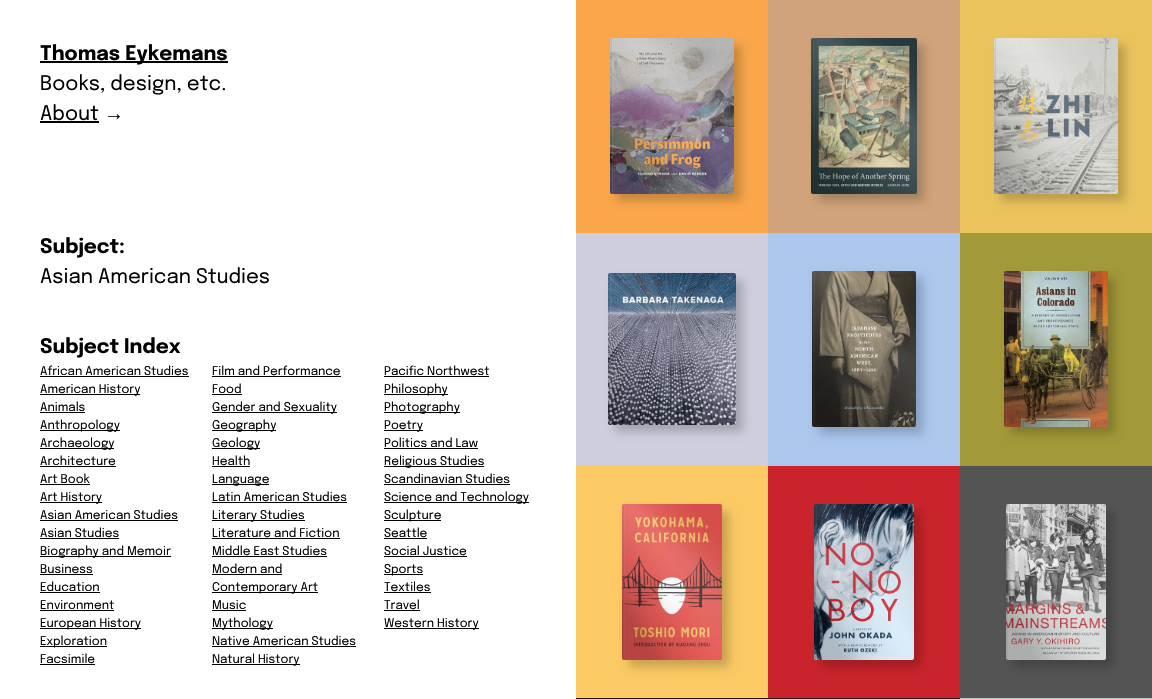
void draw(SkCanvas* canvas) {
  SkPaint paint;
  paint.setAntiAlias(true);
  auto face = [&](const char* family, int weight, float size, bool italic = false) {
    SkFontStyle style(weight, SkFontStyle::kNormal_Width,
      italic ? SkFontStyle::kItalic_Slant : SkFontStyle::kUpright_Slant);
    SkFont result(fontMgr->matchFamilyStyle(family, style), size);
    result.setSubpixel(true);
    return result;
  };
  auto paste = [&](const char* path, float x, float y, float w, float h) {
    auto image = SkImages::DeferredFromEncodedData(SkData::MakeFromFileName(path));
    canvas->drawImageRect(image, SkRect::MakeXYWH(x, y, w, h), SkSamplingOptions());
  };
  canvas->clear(0xffffffff);
  {
    const struct { float x, y, w, h; SkColor color; } items[] = {
      {40, 61, 188, 2, 0xff000000},
      {40, 121, 59, 2, 0xff000000},
      {40, 376, 149, 1, 0xff000000},
      {212, 376, 129, 1, 0xff000000},
      {384, 376, 105, 1, 0xff000000},
      {40, 394, 100, 1, 0xff000000},
      {212, 394, 30, 1, 0xff000000},
      {384, 394, 64, 1, 0xff000000},
      {40, 412, 45, 1, 0xff000000},
      {212, 412, 125, 1, 0xff000000},
      {384, 412, 76, 1, 0xff000000},
      {40, 430, 80, 1, 0xff000000},
      {212, 430, 64, 1, 0xff000000},
      {384, 430, 39, 1, 0xff000000},
      {40, 448, 74, 1, 0xff000000},
      {212, 448, 48, 1, 0xff000000},
      {384, 448, 94, 1, 0xff000000},
      {40, 466, 76, 1, 0xff000000},
      {212, 466, 38, 1, 0xff000000},
      {384, 466, 100, 1, 0xff000000},
      {40, 484, 50, 1, 0xff000000},
      {212, 484, 57, 1, 0xff000000},
      {384, 484, 126, 1, 0xff000000},
      {40, 502, 62, 1, 0xff000000},
      {212, 502, 135, 1, 0xff000000},
      {384, 502, 145, 1, 0xff000000},
      {40, 520, 138, 1, 0xff000000},
      {212, 520, 93, 1, 0xff000000},
      {384, 520, 57, 1, 0xff000000},
      {40, 538, 79, 1, 0xff000000},
      {212, 538, 128, 1, 0xff000000},
      {384, 538, 43, 1, 0xff000000},
      {40, 556, 131, 1, 0xff000000},
      {212, 556, 115, 1, 0xff000000},
      {384, 556, 83, 1, 0xff000000},
      {40, 574, 53, 1, 0xff000000},
      {212, 574, 70, 1, 0xff000000},
      {212, 592, 106, 1, 0xff000000},
      {384, 574, 39, 1, 0xff000000},
      {40, 592, 60, 1, 0xff000000},
      {384, 592, 47, 1, 0xff000000},
      {40, 610, 74, 1, 0xff000000},
      {212, 610, 34, 1, 0xff000000},
      {384, 610, 36, 1, 0xff000000},
      {40, 628, 101, 1, 0xff000000},
      {212, 628, 61, 1, 0xff000000},
      {384, 628, 95, 1, 0xff000000},
      {40, 646, 67, 1, 0xff000000},
      {212, 646, 144, 1, 0xff000000},
      {40, 664, 55, 1, 0xff000000},
      {212, 664, 88, 1, 0xff000000},
      {576, 0, 192, 233, 0xfffaa74b},
    };
    for (auto [x, y, w, h, color] : items) {
      paint.setColor(color);
      canvas->drawRect(SkRect::MakeXYWH(x, y, w, h), paint);
    }
  }
  paint.setColor(0x33000000);
  paint.setMaskFilter(SkMaskFilter::MakeBlur(kNormal_SkBlurStyle, 5));
  canvas->drawRoundRect(SkRect::MakeXYWH(617, 45, 124, 156), 2, 2, paint);
  paint.setMaskFilter(nullptr);
  paste("img/1.png", 610, 38, 124, 156);
  paint.setColor(0xffd0a37a);
  canvas->drawRect(SkRect::MakeXYWH(768, 0, 192, 233), paint);
  paint.setColor(0x33000000);
  paint.setMaskFilter(SkMaskFilter::MakeBlur(kNormal_SkBlurStyle, 5));
  canvas->drawRoundRect(SkRect::MakeXYWH(818, 45, 106, 156), 2, 2, paint);
  paint.setMaskFilter(nullptr);
  paste("img/2.png", 811, 38, 106, 156);
  paint.setColor(0xffeac35c);
  canvas->drawRect(SkRect::MakeXYWH(960, 0, 192, 233), paint);
  paint.setColor(0x33000000);
  paint.setMaskFilter(SkMaskFilter::MakeBlur(kNormal_SkBlurStyle, 5));
  canvas->drawRoundRect(SkRect::MakeXYWH(1001, 45, 124, 156), 2, 2, paint);
  paint.setMaskFilter(nullptr);
  paste("img/3.png", 994, 38, 124, 156);
  paint.setColor(0xffcecede);
  canvas->drawRect(SkRect::MakeXYWH(576, 233, 192, 233), paint);
  paint.setColor(0x33000000);
  paint.setMaskFilter(SkMaskFilter::MakeBlur(kNormal_SkBlurStyle, 5));
  canvas->drawRoundRect(SkRect::MakeXYWH(615, 280, 128, 152), 2, 2, paint);
  paint.setMaskFilter(nullptr);
  paste("img/4.png", 608, 273, 128, 152);
  paint.setColor(0xffabc7ee);
  canvas->drawRect(SkRect::MakeXYWH(768, 233, 192, 233), paint);
  paint.setColor(0x33000000);
  paint.setMaskFilter(SkMaskFilter::MakeBlur(kNormal_SkBlurStyle, 5));
  canvas->drawRoundRect(SkRect::MakeXYWH(819, 278, 104, 156), 2, 2, paint);
  paint.setMaskFilter(nullptr);
  paste("img/5.png", 812, 271, 104, 156);
  paint.setColor(0xffa39938);
  canvas->drawRect(SkRect::MakeXYWH(960, 233, 192, 233), paint);
  paint.setColor(0x33000000);
  paint.setMaskFilter(SkMaskFilter::MakeBlur(kNormal_SkBlurStyle, 5));
  canvas->drawRoundRect(SkRect::MakeXYWH(1011, 278, 104, 156), 2, 2, paint);
  paint.setMaskFilter(nullptr);
  paste("img/6.png", 1004, 271, 104, 156);
  paint.setColor(0xfffbca64);
  canvas->drawRect(SkRect::MakeXYWH(576, 466, 192, 232), paint);
  paint.setColor(0x33000000);
  paint.setMaskFilter(SkMaskFilter::MakeBlur(kNormal_SkBlurStyle, 5));
  canvas->drawRoundRect(SkRect::MakeXYWH(629, 511, 100, 156), 2, 2, paint);
  paint.setMaskFilter(nullptr);
  paste("img/7.png", 622, 504, 100, 156);
  paint.setColor(0xffc9242b);
  canvas->drawRect(SkRect::MakeXYWH(768, 466, 192, 232), paint);
  paint.setColor(0x33000000);
  paint.setMaskFilter(SkMaskFilter::MakeBlur(kNormal_SkBlurStyle, 5));
  canvas->drawRoundRect(SkRect::MakeXYWH(821, 511, 100, 156), 2, 2, paint);
  paint.setMaskFilter(nullptr);
  paste("img/8.png", 814, 504, 100, 156);
  paint.setColor(0xff545454);
  canvas->drawRect(SkRect::MakeXYWH(960, 466, 192, 232), paint);
  paint.setColor(0x33000000);
  paint.setMaskFilter(SkMaskFilter::MakeBlur(kNormal_SkBlurStyle, 5));
  canvas->drawRoundRect(SkRect::MakeXYWH(1013, 511, 100, 156), 2, 2, paint);
  paint.setMaskFilter(nullptr);
  paste("img/9.png", 1006, 504, 100, 156);
  {
    const struct { float x, y, w, h; SkColor color; } items[] = {
      {576, 698, 192, 1, 0xff28150f},
      {768, 698, 192, 1, 0xff231f20},
      {960, 698, 192, 1, 0xffbac1c7},
    };
    for (auto [x, y, w, h, color] : items) {
      paint.setColor(color);
      canvas->drawRect(SkRect::MakeXYWH(x, y, w, h), paint);
    }
  }
  auto f0 = face("Epilogue", 700, 20);
  paint.setColor(0xff000000);
  canvas->drawString("Thomas Eykemans", 40, 60, f0, paint);
  auto f1 = face("Epilogue", 400, 20);
  canvas->drawString("Books, design, etc.", 40, 90, f1, paint);
  canvas->drawString("About", 40, 120, f1, paint);
  auto f2 = face("Liberation Sans", 400, 20);
  canvas->drawString("→", 104, 120, f2, paint);
  canvas->drawString("Subject:", 40, 253, f0, paint);
  canvas->drawString("Asian American Studies", 40, 283, f1, paint);
  canvas->drawString("Subject Index", 40, 353, f0, paint);
  auto f3 = face("Epilogue", 400, 12);
  {
    const struct { const char* s; float x, y; } items[] = {
      {"African American Studies", 40, 375},
      {"Film and Performance", 212, 375},
      {"Pacific Northwest", 384, 375},
      {"American History", 40, 393},
      {"Food", 212, 393},
      {"Philosophy", 384, 393},
      {"Animals", 40, 411},
      {"Gender and Sexuality", 212, 411},
      {"Photography", 384, 411},
      {"Anthropology", 40, 429},
      {"Geography", 212, 429},
      {"Poetry", 384, 429},
      {"Archaeology", 40, 447},
      {"Geology", 212, 447},
      {"Politics and Law", 384, 447},
      {"Architecture", 40, 465},
      {"Health", 212, 465},
      {"Religious Studies", 384, 465},
      {"Art Book", 40, 483},
      {"Language", 212, 483},
      {"Scandinavian Studies", 384, 483},
      {"Art History", 40, 501},
      {"Latin American Studies", 212, 501},
      {"Science and Technology", 384, 501},
      {"Asian American Studies", 40, 519},
      {"Literary Studies", 212, 519},
      {"Sculpture", 384, 519},
      {"Asian Studies", 40, 537},
      {"Literature and Fiction", 212, 537},
      {"Seattle", 384, 537},
      {"Biography and Memoir", 40, 555},
      {"Middle East Studies", 212, 555},
      {"Social Justice", 384, 555},
      {"Business", 40, 573},
      {"Modern and", 212, 573},
      {"Contemporary Art", 212, 591},
      {"Sports", 384, 573},
      {"Education", 40, 591},
      {"Textiles", 384, 591},
      {"Environment", 40, 609},
      {"Music", 212, 609},
      {"Travel", 384, 609},
      {"European History", 40, 627},
      {"Mythology", 212, 627},
      {"Western History", 384, 627},
      {"Exploration", 40, 645},
      {"Native American Studies", 212, 645},
      {"Facsimile", 40, 663},
      {"Natural History", 212, 663},
    };
    for (auto [s, x, y] : items) {
      canvas->drawString(s, x, y, f3, paint);
    }
  }
}
